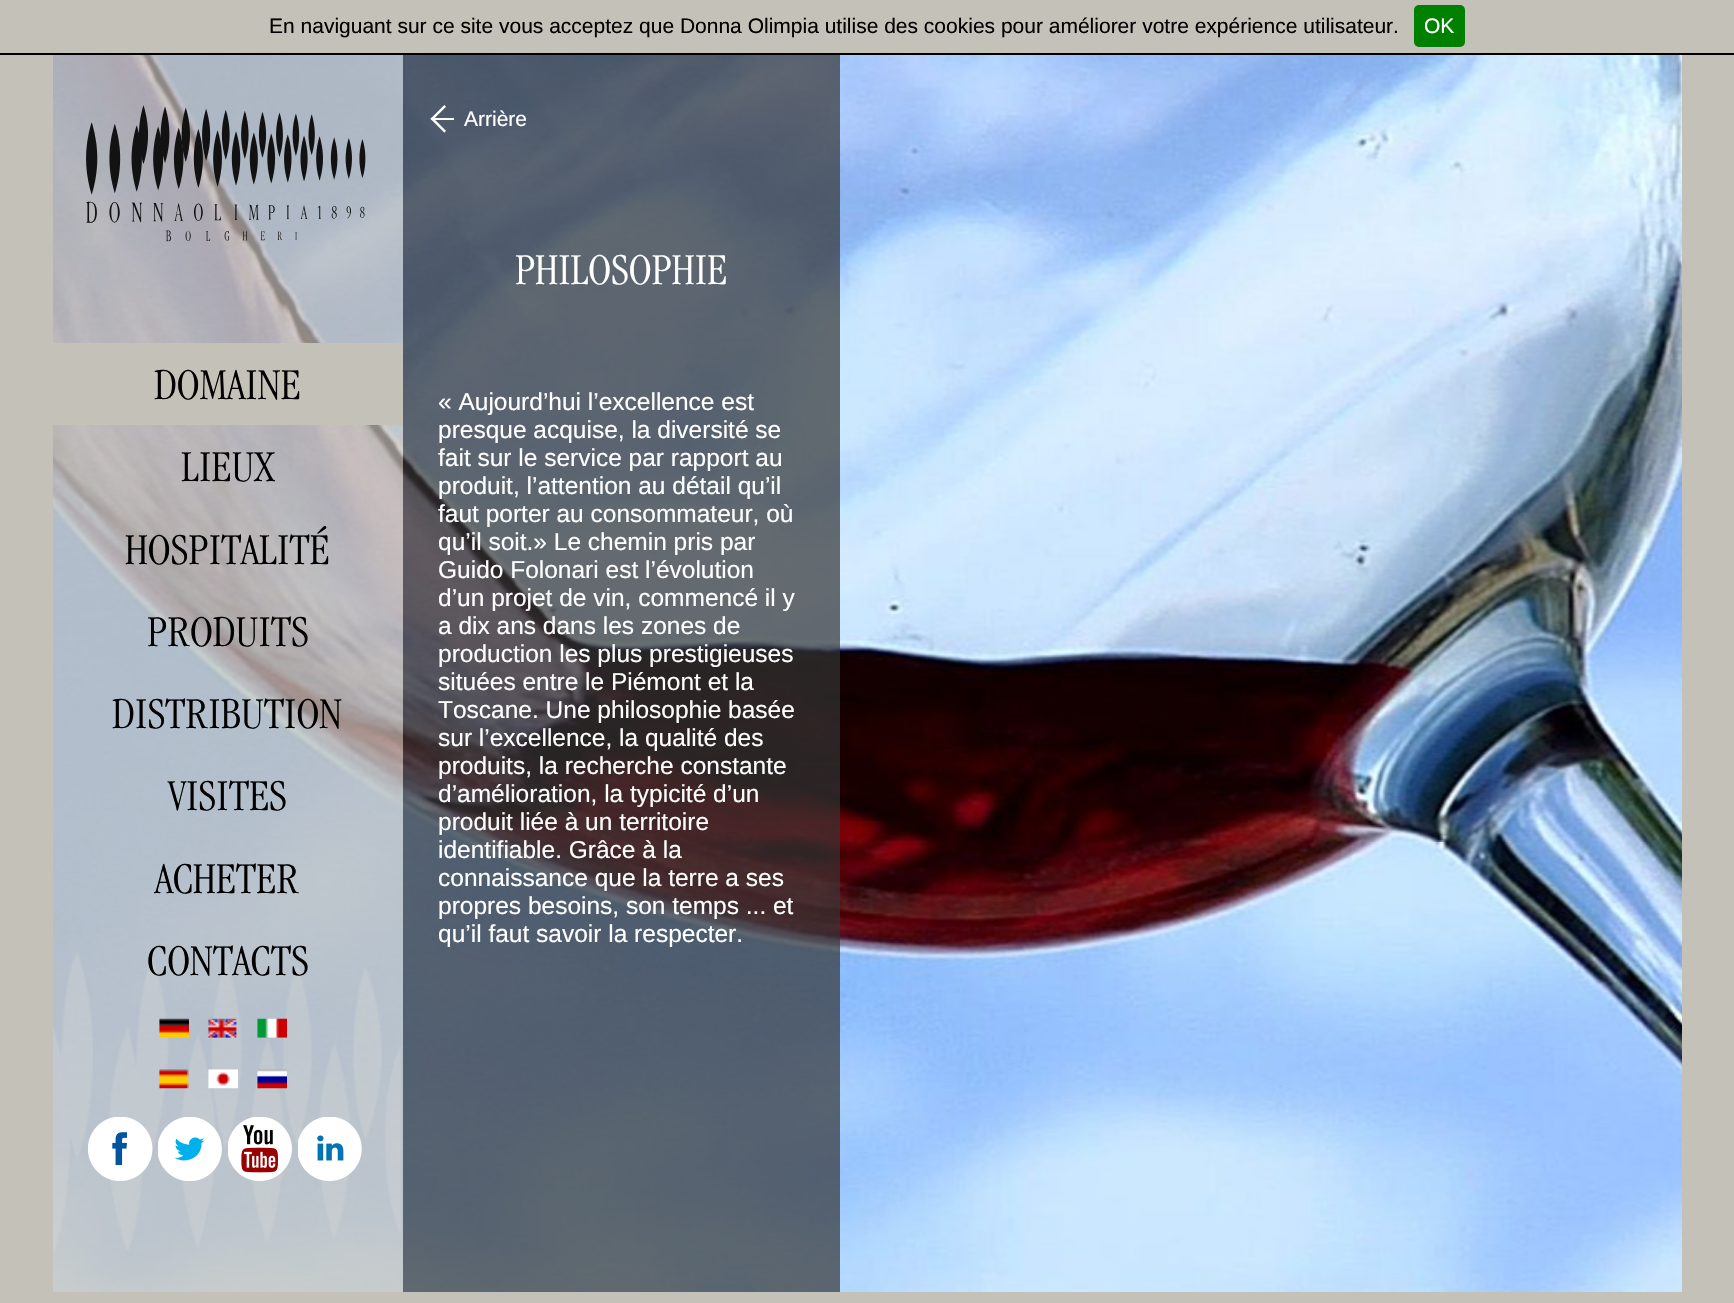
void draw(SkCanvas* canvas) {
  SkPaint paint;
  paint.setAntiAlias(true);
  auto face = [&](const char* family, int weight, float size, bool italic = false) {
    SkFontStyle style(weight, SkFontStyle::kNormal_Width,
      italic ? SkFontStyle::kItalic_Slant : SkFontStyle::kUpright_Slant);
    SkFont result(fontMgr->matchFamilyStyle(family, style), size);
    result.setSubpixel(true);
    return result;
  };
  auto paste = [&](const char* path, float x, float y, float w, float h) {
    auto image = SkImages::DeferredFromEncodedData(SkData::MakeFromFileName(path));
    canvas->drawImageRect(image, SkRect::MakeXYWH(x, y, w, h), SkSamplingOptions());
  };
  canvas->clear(0xffffffff);
  paint.setColor(0xffc4c1b8);
  canvas->drawRect(SkRect::MakeXYWH(0, 0, 1734, 53), paint);
  paint.setColor(0xff000000);
  canvas->drawRect(SkRect::MakeXYWH(0, 53, 1734, 2), paint);
  paint.setColor(0xff008000);
  canvas->drawRoundRect(SkRect::MakeXYWH(1414, 5, 51, 42), 5, 5, paint);
  paste("img/1.png", 53, 55, 1629, 1237);
  {
    const struct { float x, y, w, h; SkColor color; } items[] = {
      {0, 55, 53, 1237, 0xffc4c1b8},
      {1682, 55, 52, 1248, 0xffc4c1b8},
      {0, 1292, 1682, 11, 0xffc4c1b8},
      {53, 55, 350, 1237, 0xb3c4c1b8},
    };
    for (auto [x, y, w, h, color] : items) {
      paint.setColor(color);
      canvas->drawRect(SkRect::MakeXYWH(x, y, w, h), paint);
    }
  }
  paste("img/2.png", 86, 105, 280, 137);
  paint.setColor(0xffc4c1b8);
  canvas->drawRect(SkRect::MakeXYWH(53, 343, 350, 82), paint);
  paste("img/9.png", 53, 952, 348, 302);
  paste("img/3.png", 159, 1018, 30, 20);
  paste("img/4.png", 208, 1018, 29, 20);
  paste("img/5.png", 257, 1018, 30, 20);
  paste("img/6.png", 159, 1069, 30, 20);
  paste("img/7.png", 208, 1069, 30, 20);
  paste("img/8.png", 257, 1069, 30, 20);
  paste("img/10.png", 88, 1117, 65, 64);
  paste("img/11.png", 158, 1117, 64, 64);
  paste("img/12.png", 228, 1117, 64, 64);
  paste("img/13.png", 298, 1117, 64, 64);
  paint.setColor(0xb3333333);
  canvas->drawRect(SkRect::MakeXYWH(403, 55, 437, 1237), paint);
  paste("img/14.png", 430, 105, 24, 28);
  auto f0 = face("Liberation Sans", 400, 21);
  paint.setColor(0xff000000);
  canvas->drawString("En naviguant sur ce site vous acceptez que Donna Olimpia utilise des cookies pour améliorer votre expérience utilisateur.", 269, 33, f0, paint);
  paint.setColor(0xffffffff);
  canvas->drawString("OK", 1424, 33, f0, paint);
  auto f1 = face("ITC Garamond", 300, 45.5f);
  paint.setColor(0xff000000);
  {
    const struct { const char* s; float x, y; } items[] = {
      {"DOMAINE", 154, 399},
      {"LIEUX", 181, 481},
      {"HOSPITALITÉ", 125, 564},
      {"PRODUITS", 147, 646},
      {"DISTRIBUTION", 112, 728},
      {"VISITES", 168, 810},
      {"ACHETER", 155, 893},
      {"CONTACTS", 147, 975},
    };
    for (auto [s, x, y] : items) {
      canvas->drawString(s, x, y, f1, paint);
    }
  }
  paint.setColor(0xffffffff);
  canvas->drawString("Arrière", 464, 126, f0, paint);
  canvas->drawString("PHILOSOPHIE", 515, 284, f1, paint);
  auto f2 = face("Liberation Sans", 400, 24.5f);
  {
    const struct { const char* s; float x, y; } items[] = {
      {"« Aujourd’hui l’excellence est", 438, 410},
      {"presque acquise, la diversité se", 438, 438},
      {"fait sur le service par rapport au", 438, 466},
      {"produit, l’attention au détail qu’il", 438, 494},
      {"faut porter au consommateur, où", 438, 522},
      {"qu’il soit.» Le chemin pris par", 438, 550},
      {"Guido Folonari est l’évolution", 438, 578},
      {"d’un projet de vin, commencé il y", 438, 606},
      {"a dix ans dans les zones de", 438, 634},
      {"production les plus prestigieuses", 438, 662},
      {"situées entre le Piémont et la", 438, 690},
      {"Toscane. Une philosophie basée", 438, 718},
      {"sur l’excellence, la qualité des", 438, 746},
      {"produits, la recherche constante", 438, 774},
      {"d’amélioration, la typicité d’un", 438, 802},
      {"produit liée à un territoire", 438, 830},
      {"identifiable. Grâce à la", 438, 858},
      {"connaissance que la terre a ses", 438, 886},
      {"propres besoins, son temps ... et", 438, 914},
      {"qu’il faut savoir la respecter.", 438, 942},
    };
    for (auto [s, x, y] : items) {
      canvas->drawString(s, x, y, f2, paint);
    }
  }
}
